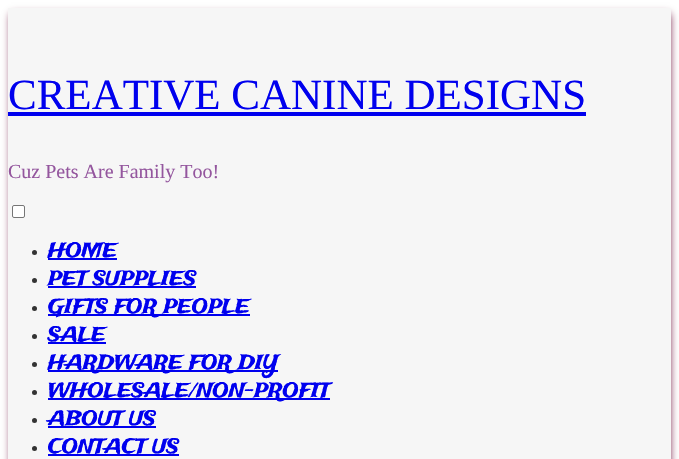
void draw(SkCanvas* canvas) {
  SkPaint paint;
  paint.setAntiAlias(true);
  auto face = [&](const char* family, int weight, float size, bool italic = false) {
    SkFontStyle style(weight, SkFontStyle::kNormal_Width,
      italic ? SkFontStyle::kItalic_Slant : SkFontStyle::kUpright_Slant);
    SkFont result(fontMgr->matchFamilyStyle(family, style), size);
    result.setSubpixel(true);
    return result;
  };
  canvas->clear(0xffffffff);
  paint.setColor(0xff680632);
  paint.setMaskFilter(SkMaskFilter::MakeBlur(kNormal_SkBlurStyle, 4));
  canvas->drawRect(SkRect::MakeXYWH(11, 14, 659, 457), paint);
  paint.setMaskFilter(nullptr);
  paint.setColor(0xfff6f6f6);
  canvas->drawRect(SkRect::MakeXYWH(8, 8, 663, 451), paint);
  paint.setColor(0xff0000ee);
  canvas->drawRect(SkRect::MakeXYWH(8, 112, 578, 4), paint);
  paint.setColor(0xffffffff);
  canvas->drawRoundRect(SkRect::MakeXYWH(12.5f, 205.5f, 12, 12), 1.5f, 1.5f, paint);
  paint.setStroke(true);
  paint.setStrokeWidth(1);
  paint.setColor(0xff767676);
  canvas->drawRoundRect(SkRect::MakeXYWH(12.5f, 205.5f, 12, 12), 1.5f, 1.5f, paint);
  paint.setStroke(false);
  paint.setColor(0xff333333);
  canvas->drawCircle(34.5f, 252.5f, 2.5f, paint);
  paint.setColor(0xff0000ee);
  canvas->drawRect(SkRect::MakeXYWH(48, 258, 69, 2), paint);
  paint.setColor(0xff333333);
  canvas->drawCircle(34.5f, 280.5f, 2.5f, paint);
  paint.setColor(0xff0000ee);
  canvas->drawRect(SkRect::MakeXYWH(48, 286, 148, 2), paint);
  paint.setColor(0xff333333);
  canvas->drawCircle(34.5f, 308.5f, 2.5f, paint);
  paint.setColor(0xff0000ee);
  canvas->drawRect(SkRect::MakeXYWH(48, 314, 202, 2), paint);
  paint.setColor(0xff333333);
  canvas->drawCircle(34.5f, 336.5f, 2.5f, paint);
  paint.setColor(0xff0000ee);
  canvas->drawRect(SkRect::MakeXYWH(48, 342, 58, 2), paint);
  paint.setColor(0xff333333);
  canvas->drawCircle(34.5f, 364.5f, 2.5f, paint);
  paint.setColor(0xff0000ee);
  canvas->drawRect(SkRect::MakeXYWH(48, 370, 230, 2), paint);
  paint.setColor(0xff333333);
  canvas->drawCircle(34.5f, 392.5f, 2.5f, paint);
  paint.setColor(0xff0000ee);
  canvas->drawRect(SkRect::MakeXYWH(48, 398, 282, 2), paint);
  paint.setColor(0xff333333);
  canvas->drawCircle(34.5f, 420.5f, 2.5f, paint);
  paint.setColor(0xff0000ee);
  canvas->drawRect(SkRect::MakeXYWH(48, 426, 108, 2), paint);
  paint.setColor(0xff333333);
  canvas->drawCircle(34.5f, 448.5f, 2.5f, paint);
  paint.setColor(0xff0000ee);
  canvas->drawRect(SkRect::MakeXYWH(48, 454, 131, 2), paint);
  auto f0 = face("Liberation Serif", 400, 43);
  canvas->drawString("CREATIVE CANINE DESIGNS", 8, 109, f0, paint);
  auto f1 = face("Liberation Serif", 400, 20);
  paint.setColor(0xff94569e);
  canvas->drawString("Cuz Pets Are Family Too!", 8, 178, f1, paint);
  auto f2 = face("Trade Winds", 400, 20);
  paint.setColor(0xff0000ee);
  {
    const struct { const char* s; float x, y; } items[] = {
      {"HOME", 48, 257},
      {"PET SUPPLIES", 48, 285},
      {"GIFTS FOR PEOPLE", 48, 313},
      {"SALE", 48, 341},
      {"HARDWARE FOR DIY", 48, 369},
      {"WHOLESALE/NON-PROFIT", 48, 397},
      {"ABOUT US", 48, 425},
      {"CONTACT US", 48, 453},
    };
    for (auto [s, x, y] : items) {
      canvas->drawString(s, x, y, f2, paint);
    }
  }
}
